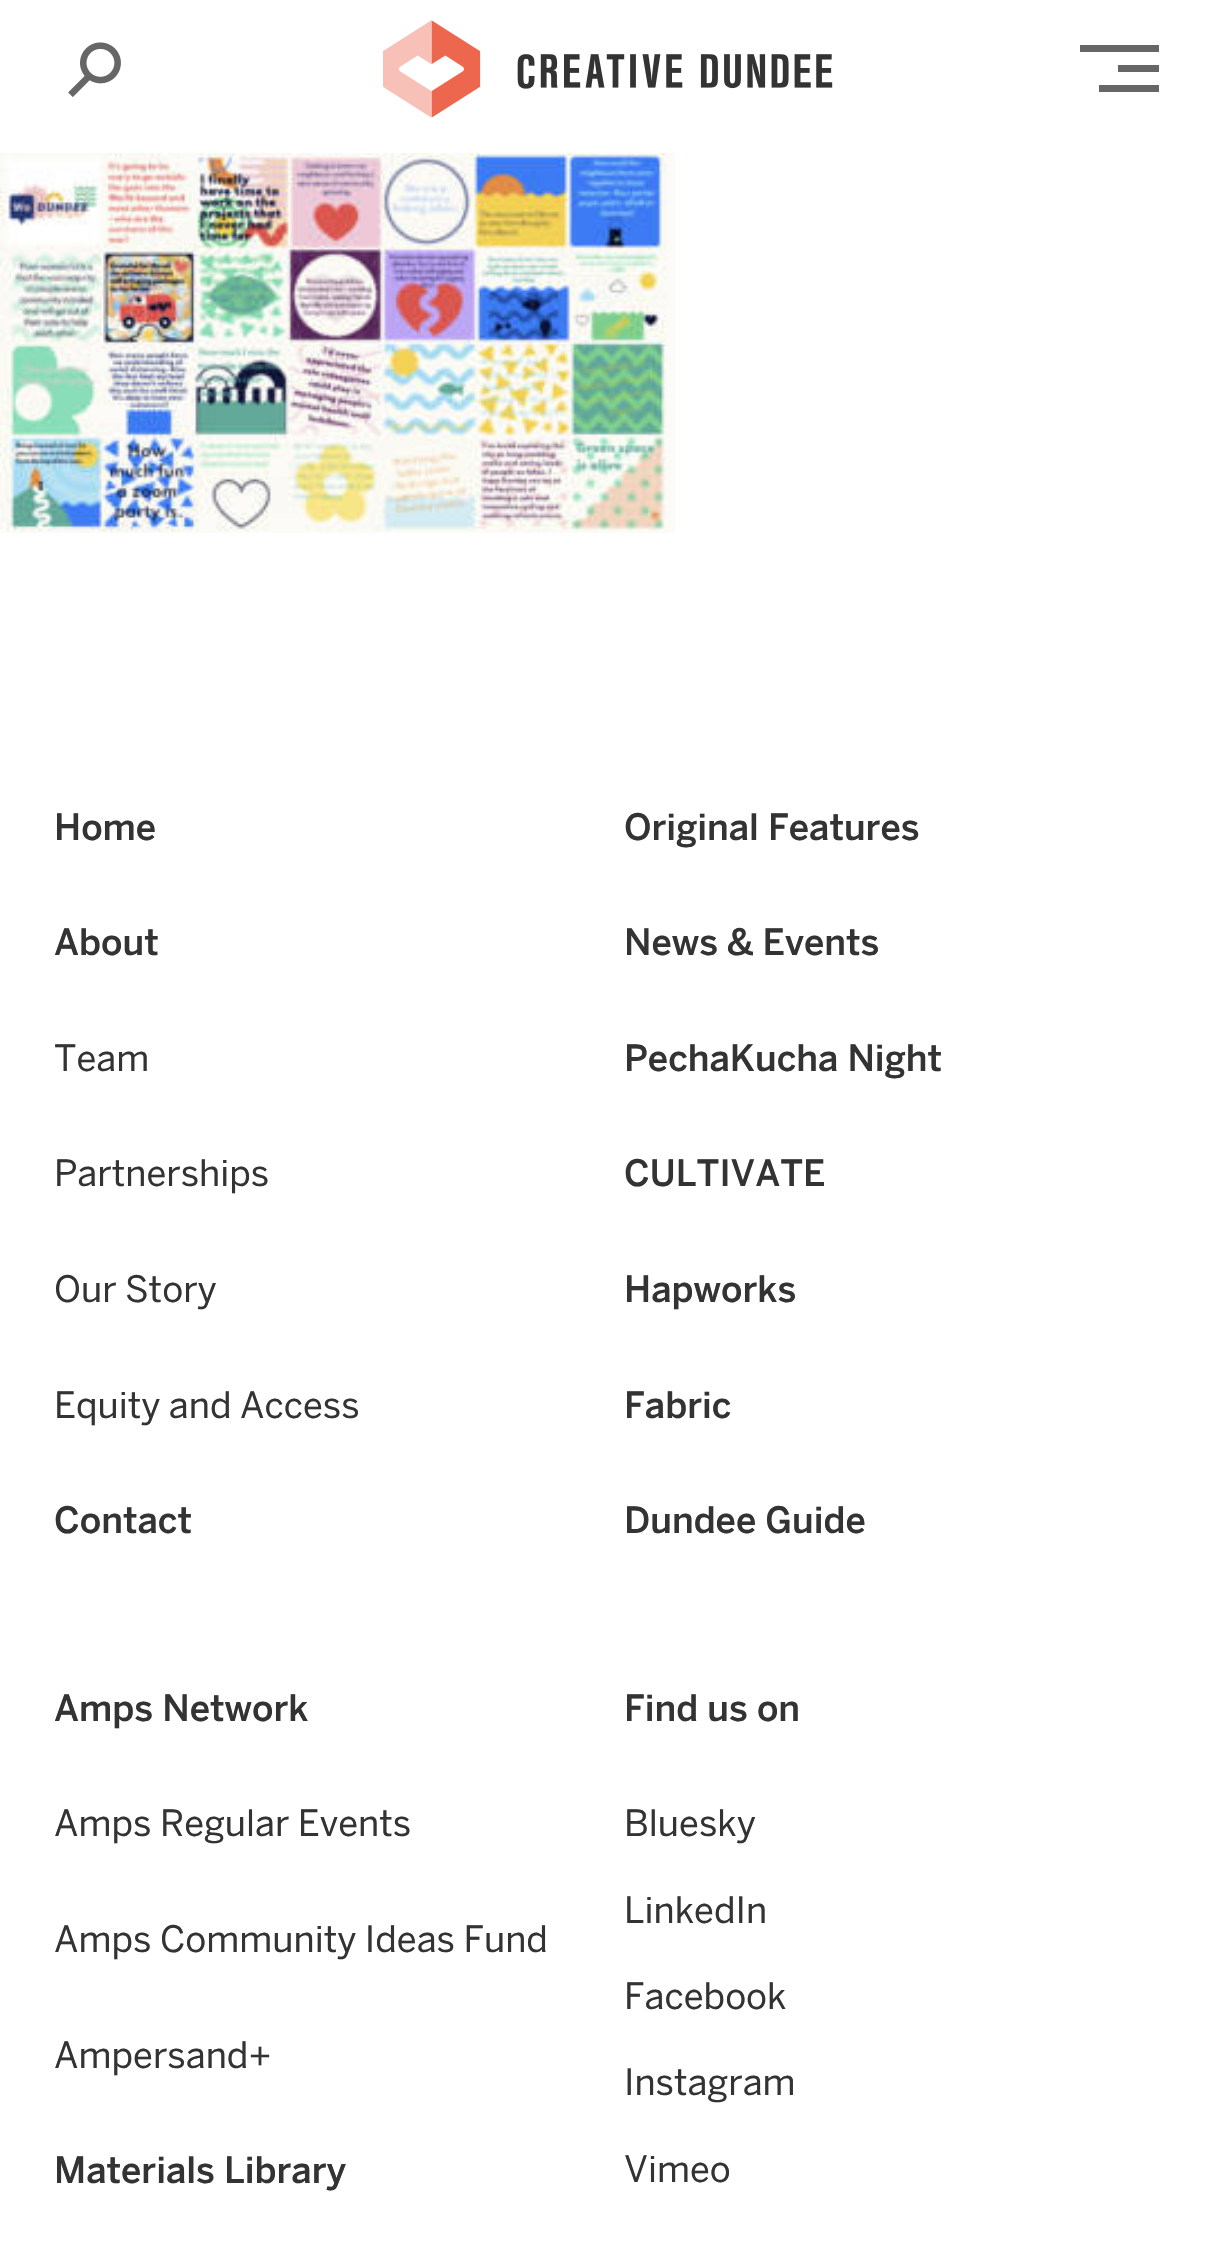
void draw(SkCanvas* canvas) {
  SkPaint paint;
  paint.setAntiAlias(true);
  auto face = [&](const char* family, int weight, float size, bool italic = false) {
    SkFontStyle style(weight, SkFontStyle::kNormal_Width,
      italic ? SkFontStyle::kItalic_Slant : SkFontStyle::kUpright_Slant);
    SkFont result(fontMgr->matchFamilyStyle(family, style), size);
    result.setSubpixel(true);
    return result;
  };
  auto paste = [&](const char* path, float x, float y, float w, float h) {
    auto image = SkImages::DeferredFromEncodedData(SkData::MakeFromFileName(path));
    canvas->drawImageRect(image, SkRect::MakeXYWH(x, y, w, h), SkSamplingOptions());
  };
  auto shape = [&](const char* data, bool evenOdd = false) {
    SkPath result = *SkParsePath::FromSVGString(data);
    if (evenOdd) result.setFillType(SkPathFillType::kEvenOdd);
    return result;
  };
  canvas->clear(0xffffffff);
  paste("img/1.png", 68, 42, 53, 55);
  paste("img/2.png", 383, 20, 450, 97);
  paint.setColor(0xff666666);
  canvas->drawPath(shape("M1080 45H1159V52H1080ZM1118 65H1159V72H1118ZM1099 85H1159V92H1099Z"), paint);
  paste("img/3.png", 0, 153, 675, 380);
  auto f0 = face("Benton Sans", 500, 36);
  paint.setColor(0xff333333);
  canvas->drawString("Home", 54, 840, f0, paint);
  canvas->drawString("About", 54, 955, f0, paint);
  auto f1 = face("Benton Sans", 400, 36);
  {
    const struct { const char* s; float x, y; } items[] = {
      {"Team", 54, 1071},
      {"Partnerships", 54, 1186},
      {"Our Story", 54, 1302},
      {"Equity and Access", 54, 1418},
    };
    for (auto [s, x, y] : items) {
      canvas->drawString(s, x, y, f1, paint);
    }
  }
  {
    const struct { const char* s; float x, y; } items[] = {
      {"Contact", 54, 1533},
      {"Original Features", 624, 840},
      {"News & Events", 624, 955},
      {"PechaKucha Night", 624, 1071},
      {"CULTIVATE", 624, 1186},
      {"Hapworks", 624, 1302},
      {"Fabric", 624, 1418},
      {"Dundee Guide", 624, 1533},
      {"Amps Network", 54, 1721},
    };
    for (auto [s, x, y] : items) {
      canvas->drawString(s, x, y, f0, paint);
    }
  }
  {
    const struct { const char* s; float x, y; } items[] = {
      {"Amps Regular Events", 54, 1836},
      {"Amps Community Ideas Fund", 54, 1952},
      {"Ampersand+", 54, 2068},
    };
    for (auto [s, x, y] : items) {
      canvas->drawString(s, x, y, f1, paint);
    }
  }
  canvas->drawString("Materials Library", 54, 2183, f0, paint);
  canvas->drawString("Find us on", 624, 1721, f0, paint);
  {
    const struct { const char* s; float x, y; } items[] = {
      {"Bluesky", 624, 1836},
      {"LinkedIn", 624, 1923},
      {"Facebook", 624, 2009},
      {"Instagram", 624, 2095},
      {"Vimeo", 624, 2182},
    };
    for (auto [s, x, y] : items) {
      canvas->drawString(s, x, y, f1, paint);
    }
  }
}
